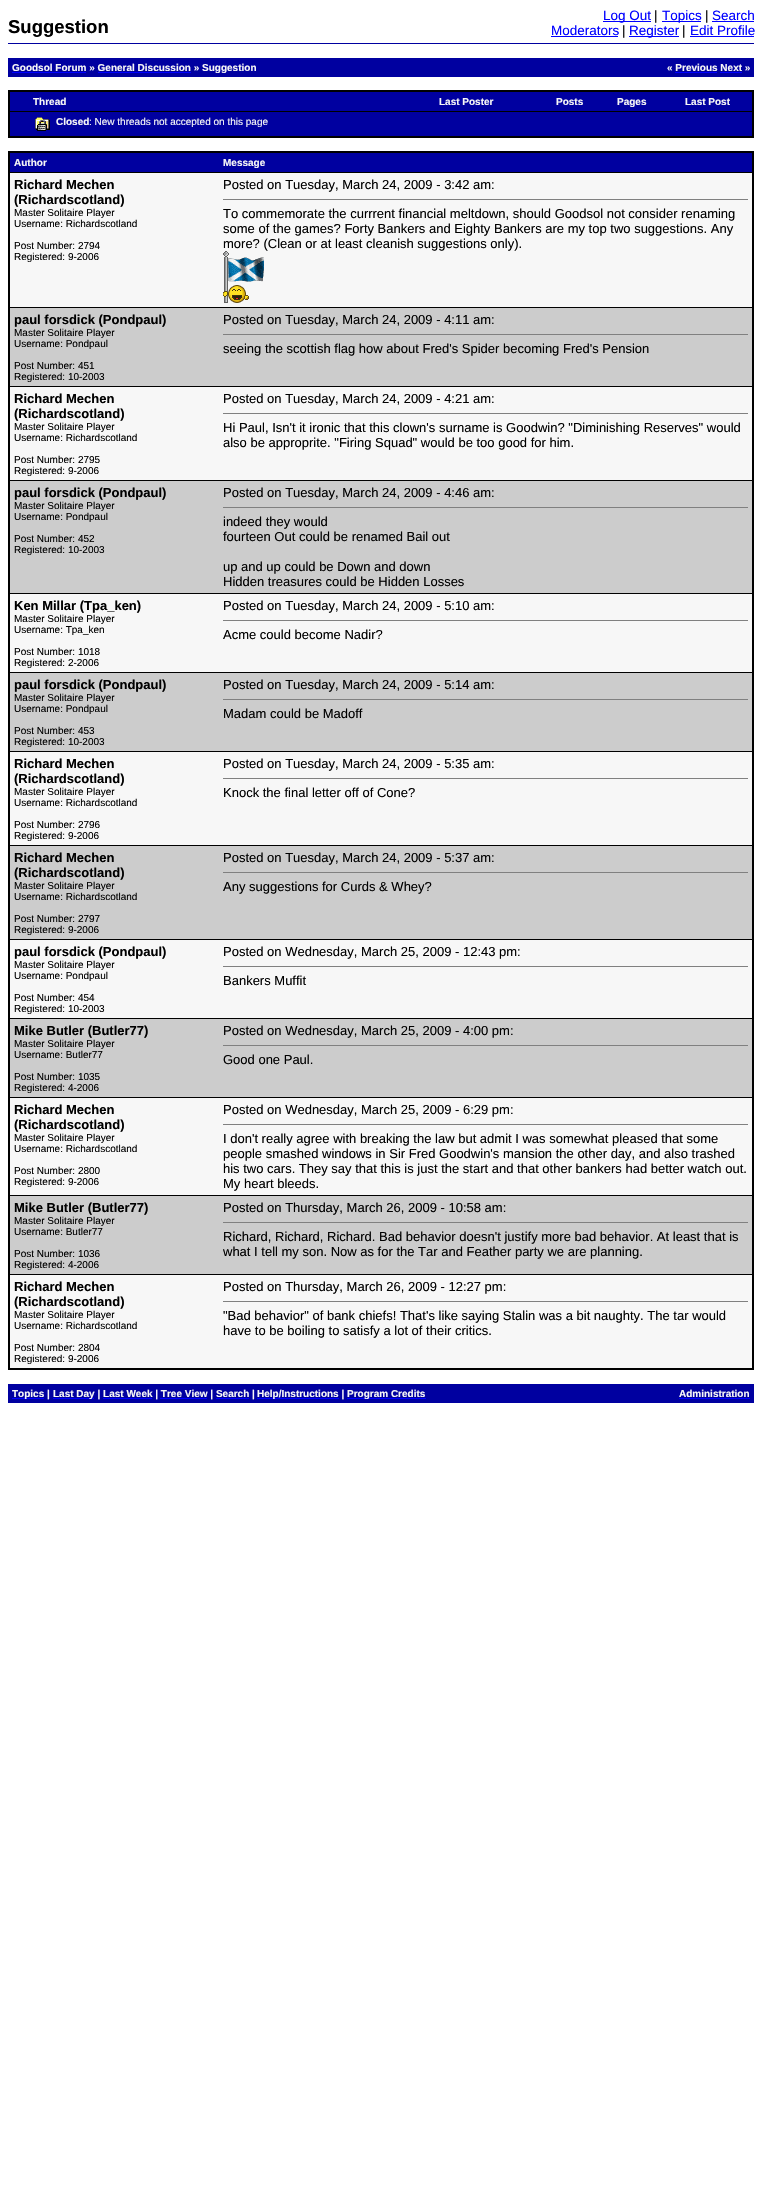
void draw(SkCanvas* canvas) {
  SkPaint paint;
  paint.setAntiAlias(true);
  auto face = [&](const char* family, int weight, float size, bool italic = false) {
    SkFontStyle style(weight, SkFontStyle::kNormal_Width,
      italic ? SkFontStyle::kItalic_Slant : SkFontStyle::kUpright_Slant);
    SkFont result(fontMgr->matchFamilyStyle(family, style), size);
    result.setSubpixel(true);
    return result;
  };
  auto paste = [&](const char* path, float x, float y, float w, float h) {
    auto image = SkImages::DeferredFromEncodedData(SkData::MakeFromFileName(path));
    canvas->drawImageRect(image, SkRect::MakeXYWH(x, y, w, h), SkSamplingOptions());
  };
  canvas->clear(0xffffffff);
  {
    const struct { float x, y, w, h; SkColor color; } items[] = {
      {8, 43, 746, 1, 0xff0000a0},
      {603, 21, 48, 1, 0xff0000ff},
      {662, 21, 39, 1, 0xff0000ff},
      {712, 21, 42, 1, 0xff0000ff},
      {551, 36, 67, 1, 0xff0000ff},
      {629, 36, 50, 1, 0xff0000ff},
      {690, 36, 64, 1, 0xff0000ff},
      {8, 58, 746, 19, 0xff0000a0},
      {12, 72, 74, 1, 0xff0000ff},
      {675, 72, 42, 1, 0xff0000ff},
      {720, 72, 22, 1, 0xff0000ff},
      {8, 90, 746, 48, 0xff000000},
      {10, 92, 742, 19, 0xff0000a0},
      {10, 112, 742, 24, 0xff0000a0},
    };
    for (auto [x, y, w, h, color] : items) {
      paint.setColor(color);
      canvas->drawRect(SkRect::MakeXYWH(x, y, w, h), paint);
    }
  }
  paste("img/1.png", 35, 117, 15, 14);
  {
    const struct { float x, y, w, h; SkColor color; } items[] = {
      {8, 151, 746, 1219, 0xff000000},
      {10, 153, 742, 19, 0xff0000a0},
      {10, 173, 742, 134, 0xfff7f7f7},
      {223, 199, 525, 1, 0xff808080},
    };
    for (auto [x, y, w, h, color] : items) {
      paint.setColor(color);
      canvas->drawRect(SkRect::MakeXYWH(x, y, w, h), paint);
    }
  }
  paste("img/2.png", 223, 251, 41, 52);
  {
    const struct { float x, y, w, h; SkColor color; } items[] = {
      {10, 308, 742, 78, 0xffcccccc},
      {223, 334, 525, 1, 0xff808080},
      {10, 387, 742, 93, 0xfff7f7f7},
      {223, 413, 525, 1, 0xff808080},
      {10, 481, 742, 112, 0xffcccccc},
      {223, 507, 525, 1, 0xff808080},
      {10, 594, 742, 78, 0xfff7f7f7},
      {223, 620, 525, 1, 0xff808080},
      {10, 673, 742, 78, 0xffcccccc},
      {223, 699, 525, 1, 0xff808080},
      {10, 752, 742, 93, 0xfff7f7f7},
      {223, 778, 525, 1, 0xff808080},
      {10, 846, 742, 93, 0xffcccccc},
      {223, 872, 525, 1, 0xff808080},
      {10, 940, 742, 78, 0xfff7f7f7},
      {223, 966, 525, 1, 0xff808080},
      {10, 1019, 742, 78, 0xffcccccc},
      {223, 1045, 525, 1, 0xff808080},
      {10, 1098, 742, 97, 0xfff7f7f7},
      {223, 1124, 525, 1, 0xff808080},
      {10, 1196, 742, 78, 0xffcccccc},
      {223, 1222, 525, 1, 0xff808080},
      {10, 1275, 742, 93, 0xfff7f7f7},
      {223, 1301, 525, 1, 0xff808080},
      {8, 1384, 746, 19, 0xff0000a0},
      {12, 1398, 32, 1, 0xff0000ff},
      {53, 1398, 41, 1, 0xff0000ff},
      {257, 1398, 82, 1, 0xff0000ff},
      {347, 1398, 79, 1, 0xff0000ff},
      {679, 1398, 71, 1, 0xff0000ff},
    };
    for (auto [x, y, w, h, color] : items) {
      paint.setColor(color);
      canvas->drawRect(SkRect::MakeXYWH(x, y, w, h), paint);
    }
  }
  auto f0 = face("Liberation Sans", 700, 18.5f);
  paint.setColor(0xff000000);
  canvas->drawString("Suggestion", 8, 33, f0, paint);
  auto f1 = face("Liberation Sans", 400, 13.5f);
  paint.setColor(0xff0000ff);
  canvas->drawString("Log Out", 603, 20, f1, paint);
  paint.setColor(0xff000000);
  canvas->drawString("|", 654, 20, f1, paint);
  paint.setColor(0xff0000ff);
  canvas->drawString("Topics", 662, 20, f1, paint);
  paint.setColor(0xff000000);
  canvas->drawString("|", 705, 20, f1, paint);
  paint.setColor(0xff0000ff);
  canvas->drawString("Search", 712, 20, f1, paint);
  canvas->drawString("Moderators", 551, 35, f1, paint);
  paint.setColor(0xff000000);
  canvas->drawString("|", 622, 35, f1, paint);
  paint.setColor(0xff0000ff);
  canvas->drawString("Register", 629, 35, f1, paint);
  paint.setColor(0xff000000);
  canvas->drawString("|", 682, 35, f1, paint);
  paint.setColor(0xff0000ff);
  canvas->drawString("Edit Profile", 690, 35, f1, paint);
  auto f2 = face("Liberation Sans", 700, 10);
  paint.setColor(0xfff7f7f7);
  canvas->drawString("Goodsol Forum » General Discussion » Suggestion", 12, 71, f2, paint);
  paint.setColor(0xff0000ff);
  canvas->drawRect(SkRect::MakeXYWH(98, 72, 93, 1), paint);
  paint.setColor(0xfff7f7f7);
  {
    const struct { const char* s; float x, y; } items[] = {
      {"« Previous Next »", 667, 71},
      {"Thread", 33, 105},
      {"Last Poster", 439, 105},
      {"Posts", 556, 105},
      {"Pages", 617, 105},
      {"Last Post", 685, 105},
      {"Closed", 56, 125},
    };
    for (auto [s, x, y] : items) {
      canvas->drawString(s, x, y, f2, paint);
    }
  }
  auto f3 = face("Liberation Sans", 400, 10);
  canvas->drawString(": New threads not accepted on this page", 89, 125, f3, paint);
  canvas->drawString("Author", 14, 166, f2, paint);
  canvas->drawString("Message", 223, 166, f2, paint);
  auto f4 = face("Liberation Sans", 700, 13);
  paint.setColor(0xff000000);
  canvas->drawString("Richard Mechen", 14, 189, f4, paint);
  canvas->drawString("(Richardscotland)", 14, 204, f4, paint);
  {
    const struct { const char* s; float x, y; } items[] = {
      {"Master Solitaire Player", 14, 216},
      {"Username: Richardscotland", 14, 227},
      {"Post Number: 2794", 14, 249},
      {"Registered: 9-2006", 14, 260},
    };
    for (auto [s, x, y] : items) {
      canvas->drawString(s, x, y, f3, paint);
    }
  }
  auto f5 = face("Liberation Sans", 400, 13);
  {
    const struct { const char* s; float x, y; } items[] = {
      {"Posted on Tuesday, March 24, 2009 - 3:42 am:", 223, 189},
      {"To commemorate the currrent financial meltdown, should Goodsol not consider renaming", 223, 218},
      {"some of the games? Forty Bankers and Eighty Bankers are my top two suggestions. Any", 223, 233},
      {"more? (Clean or at least cleanish suggestions only).", 223, 248},
    };
    for (auto [s, x, y] : items) {
      canvas->drawString(s, x, y, f5, paint);
    }
  }
  canvas->drawString("paul forsdick (Pondpaul)", 14, 324, f4, paint);
  {
    const struct { const char* s; float x, y; } items[] = {
      {"Master Solitaire Player", 14, 336},
      {"Username: Pondpaul", 14, 347},
      {"Post Number: 451", 14, 369},
      {"Registered: 10-2003", 14, 380},
    };
    for (auto [s, x, y] : items) {
      canvas->drawString(s, x, y, f3, paint);
    }
  }
  canvas->drawString("Posted on Tuesday, March 24, 2009 - 4:11 am:", 223, 324, f5, paint);
  canvas->drawString("seeing the scottish flag how about Fred's Spider becoming Fred's Pension", 223, 353, f5, paint);
  canvas->drawString("Richard Mechen", 14, 403, f4, paint);
  canvas->drawString("(Richardscotland)", 14, 418, f4, paint);
  {
    const struct { const char* s; float x, y; } items[] = {
      {"Master Solitaire Player", 14, 430},
      {"Username: Richardscotland", 14, 441},
      {"Post Number: 2795", 14, 463},
      {"Registered: 9-2006", 14, 474},
    };
    for (auto [s, x, y] : items) {
      canvas->drawString(s, x, y, f3, paint);
    }
  }
  {
    const struct { const char* s; float x, y; } items[] = {
      {"Posted on Tuesday, March 24, 2009 - 4:21 am:", 223, 403},
      {"Hi Paul, Isn't it ironic that this clown's surname is Goodwin? \"Diminishing Reserves\" would", 223, 432},
      {"also be approprite. \"Firing Squad\" would be too good for him.", 223, 447},
    };
    for (auto [s, x, y] : items) {
      canvas->drawString(s, x, y, f5, paint);
    }
  }
  canvas->drawString("paul forsdick (Pondpaul)", 14, 497, f4, paint);
  {
    const struct { const char* s; float x, y; } items[] = {
      {"Master Solitaire Player", 14, 509},
      {"Username: Pondpaul", 14, 520},
      {"Post Number: 452", 14, 542},
      {"Registered: 10-2003", 14, 553},
    };
    for (auto [s, x, y] : items) {
      canvas->drawString(s, x, y, f3, paint);
    }
  }
  {
    const struct { const char* s; float x, y; } items[] = {
      {"Posted on Tuesday, March 24, 2009 - 4:46 am:", 223, 497},
      {"indeed they would", 223, 526},
      {"fourteen Out could be renamed Bail out", 223, 541},
      {"up and up could be Down and down", 223, 571},
      {"Hidden treasures could be Hidden Losses", 223, 586},
    };
    for (auto [s, x, y] : items) {
      canvas->drawString(s, x, y, f5, paint);
    }
  }
  canvas->drawString("Ken Millar (Tpa_ken)", 14, 610, f4, paint);
  {
    const struct { const char* s; float x, y; } items[] = {
      {"Master Solitaire Player", 14, 622},
      {"Username: Tpa_ken", 14, 633},
      {"Post Number: 1018", 14, 655},
      {"Registered: 2-2006", 14, 666},
    };
    for (auto [s, x, y] : items) {
      canvas->drawString(s, x, y, f3, paint);
    }
  }
  canvas->drawString("Posted on Tuesday, March 24, 2009 - 5:10 am:", 223, 610, f5, paint);
  canvas->drawString("Acme could become Nadir?", 223, 639, f5, paint);
  canvas->drawString("paul forsdick (Pondpaul)", 14, 689, f4, paint);
  {
    const struct { const char* s; float x, y; } items[] = {
      {"Master Solitaire Player", 14, 701},
      {"Username: Pondpaul", 14, 712},
      {"Post Number: 453", 14, 734},
      {"Registered: 10-2003", 14, 745},
    };
    for (auto [s, x, y] : items) {
      canvas->drawString(s, x, y, f3, paint);
    }
  }
  canvas->drawString("Posted on Tuesday, March 24, 2009 - 5:14 am:", 223, 689, f5, paint);
  canvas->drawString("Madam could be Madoff", 223, 718, f5, paint);
  canvas->drawString("Richard Mechen", 14, 768, f4, paint);
  canvas->drawString("(Richardscotland)", 14, 783, f4, paint);
  {
    const struct { const char* s; float x, y; } items[] = {
      {"Master Solitaire Player", 14, 795},
      {"Username: Richardscotland", 14, 806},
      {"Post Number: 2796", 14, 828},
      {"Registered: 9-2006", 14, 839},
    };
    for (auto [s, x, y] : items) {
      canvas->drawString(s, x, y, f3, paint);
    }
  }
  canvas->drawString("Posted on Tuesday, March 24, 2009 - 5:35 am:", 223, 768, f5, paint);
  canvas->drawString("Knock the final letter off of Cone?", 223, 797, f5, paint);
  canvas->drawString("Richard Mechen", 14, 862, f4, paint);
  canvas->drawString("(Richardscotland)", 14, 877, f4, paint);
  {
    const struct { const char* s; float x, y; } items[] = {
      {"Master Solitaire Player", 14, 889},
      {"Username: Richardscotland", 14, 900},
      {"Post Number: 2797", 14, 922},
      {"Registered: 9-2006", 14, 933},
    };
    for (auto [s, x, y] : items) {
      canvas->drawString(s, x, y, f3, paint);
    }
  }
  canvas->drawString("Posted on Tuesday, March 24, 2009 - 5:37 am:", 223, 862, f5, paint);
  canvas->drawString("Any suggestions for Curds & Whey?", 223, 891, f5, paint);
  canvas->drawString("paul forsdick (Pondpaul)", 14, 956, f4, paint);
  {
    const struct { const char* s; float x, y; } items[] = {
      {"Master Solitaire Player", 14, 968},
      {"Username: Pondpaul", 14, 979},
      {"Post Number: 454", 14, 1001},
      {"Registered: 10-2003", 14, 1012},
    };
    for (auto [s, x, y] : items) {
      canvas->drawString(s, x, y, f3, paint);
    }
  }
  canvas->drawString("Posted on Wednesday, March 25, 2009 - 12:43 pm:", 223, 956, f5, paint);
  canvas->drawString("Bankers Muffit", 223, 985, f5, paint);
  canvas->drawString("Mike Butler (Butler77)", 14, 1035, f4, paint);
  {
    const struct { const char* s; float x, y; } items[] = {
      {"Master Solitaire Player", 14, 1047},
      {"Username: Butler77", 14, 1058},
      {"Post Number: 1035", 14, 1080},
      {"Registered: 4-2006", 14, 1091},
    };
    for (auto [s, x, y] : items) {
      canvas->drawString(s, x, y, f3, paint);
    }
  }
  canvas->drawString("Posted on Wednesday, March 25, 2009 - 4:00 pm:", 223, 1035, f5, paint);
  canvas->drawString("Good one Paul.", 223, 1064, f5, paint);
  canvas->drawString("Richard Mechen", 14, 1114, f4, paint);
  canvas->drawString("(Richardscotland)", 14, 1129, f4, paint);
  {
    const struct { const char* s; float x, y; } items[] = {
      {"Master Solitaire Player", 14, 1141},
      {"Username: Richardscotland", 14, 1152},
      {"Post Number: 2800", 14, 1174},
      {"Registered: 9-2006", 14, 1185},
    };
    for (auto [s, x, y] : items) {
      canvas->drawString(s, x, y, f3, paint);
    }
  }
  {
    const struct { const char* s; float x, y; } items[] = {
      {"Posted on Wednesday, March 25, 2009 - 6:29 pm:", 223, 1114},
      {"I don't really agree with breaking the law but admit I was somewhat pleased that some", 223, 1143},
      {"people smashed windows in Sir Fred Goodwin's mansion the other day, and also trashed", 223, 1158},
      {"his two cars. They say that this is just the start and that other bankers had better watch out.", 223, 1173},
      {"My heart bleeds.", 223, 1188},
    };
    for (auto [s, x, y] : items) {
      canvas->drawString(s, x, y, f5, paint);
    }
  }
  canvas->drawString("Mike Butler (Butler77)", 14, 1212, f4, paint);
  {
    const struct { const char* s; float x, y; } items[] = {
      {"Master Solitaire Player", 14, 1224},
      {"Username: Butler77", 14, 1235},
      {"Post Number: 1036", 14, 1257},
      {"Registered: 4-2006", 14, 1268},
    };
    for (auto [s, x, y] : items) {
      canvas->drawString(s, x, y, f3, paint);
    }
  }
  {
    const struct { const char* s; float x, y; } items[] = {
      {"Posted on Thursday, March 26, 2009 - 10:58 am:", 223, 1212},
      {"Richard, Richard, Richard. Bad behavior doesn't justify more bad behavior. At least that is", 223, 1241},
      {"what I tell my son. Now as for the Tar and Feather party we are planning.", 223, 1256},
    };
    for (auto [s, x, y] : items) {
      canvas->drawString(s, x, y, f5, paint);
    }
  }
  canvas->drawString("Richard Mechen", 14, 1291, f4, paint);
  canvas->drawString("(Richardscotland)", 14, 1306, f4, paint);
  {
    const struct { const char* s; float x, y; } items[] = {
      {"Master Solitaire Player", 14, 1318},
      {"Username: Richardscotland", 14, 1329},
      {"Post Number: 2804", 14, 1351},
      {"Registered: 9-2006", 14, 1362},
    };
    for (auto [s, x, y] : items) {
      canvas->drawString(s, x, y, f3, paint);
    }
  }
  {
    const struct { const char* s; float x, y; } items[] = {
      {"Posted on Thursday, March 26, 2009 - 12:27 pm:", 223, 1291},
      {"\"Bad behavior\" of bank chiefs! That's like saying Stalin was a bit naughty. The tar would", 223, 1320},
      {"have to be boiling to satisfy a lot of their critics.", 223, 1335},
    };
    for (auto [s, x, y] : items) {
      canvas->drawString(s, x, y, f5, paint);
    }
  }
  paint.setColor(0xfff7f7f7);
  canvas->drawString("Topics |", 12, 1397, f2, paint);
  canvas->drawString("Last Day | Last Week | Tree View | Search |", 53, 1397, f2, paint);
  {
    const struct { float x, y, w, h; SkColor color; } items[] = {
      {103, 1398, 49, 1, 0xff0000ff},
      {160, 1398, 47, 1, 0xff0000ff},
      {216, 1398, 33, 1, 0xff0000ff},
    };
    for (auto [x, y, w, h, color] : items) {
      paint.setColor(color);
      canvas->drawRect(SkRect::MakeXYWH(x, y, w, h), paint);
    }
  }
  paint.setColor(0xfff7f7f7);
  {
    const struct { const char* s; float x, y; } items[] = {
      {"Help/Instructions |", 257, 1397},
      {"Program Credits", 347, 1397},
      {"Administration", 679, 1397},
    };
    for (auto [s, x, y] : items) {
      canvas->drawString(s, x, y, f2, paint);
    }
  }
}
